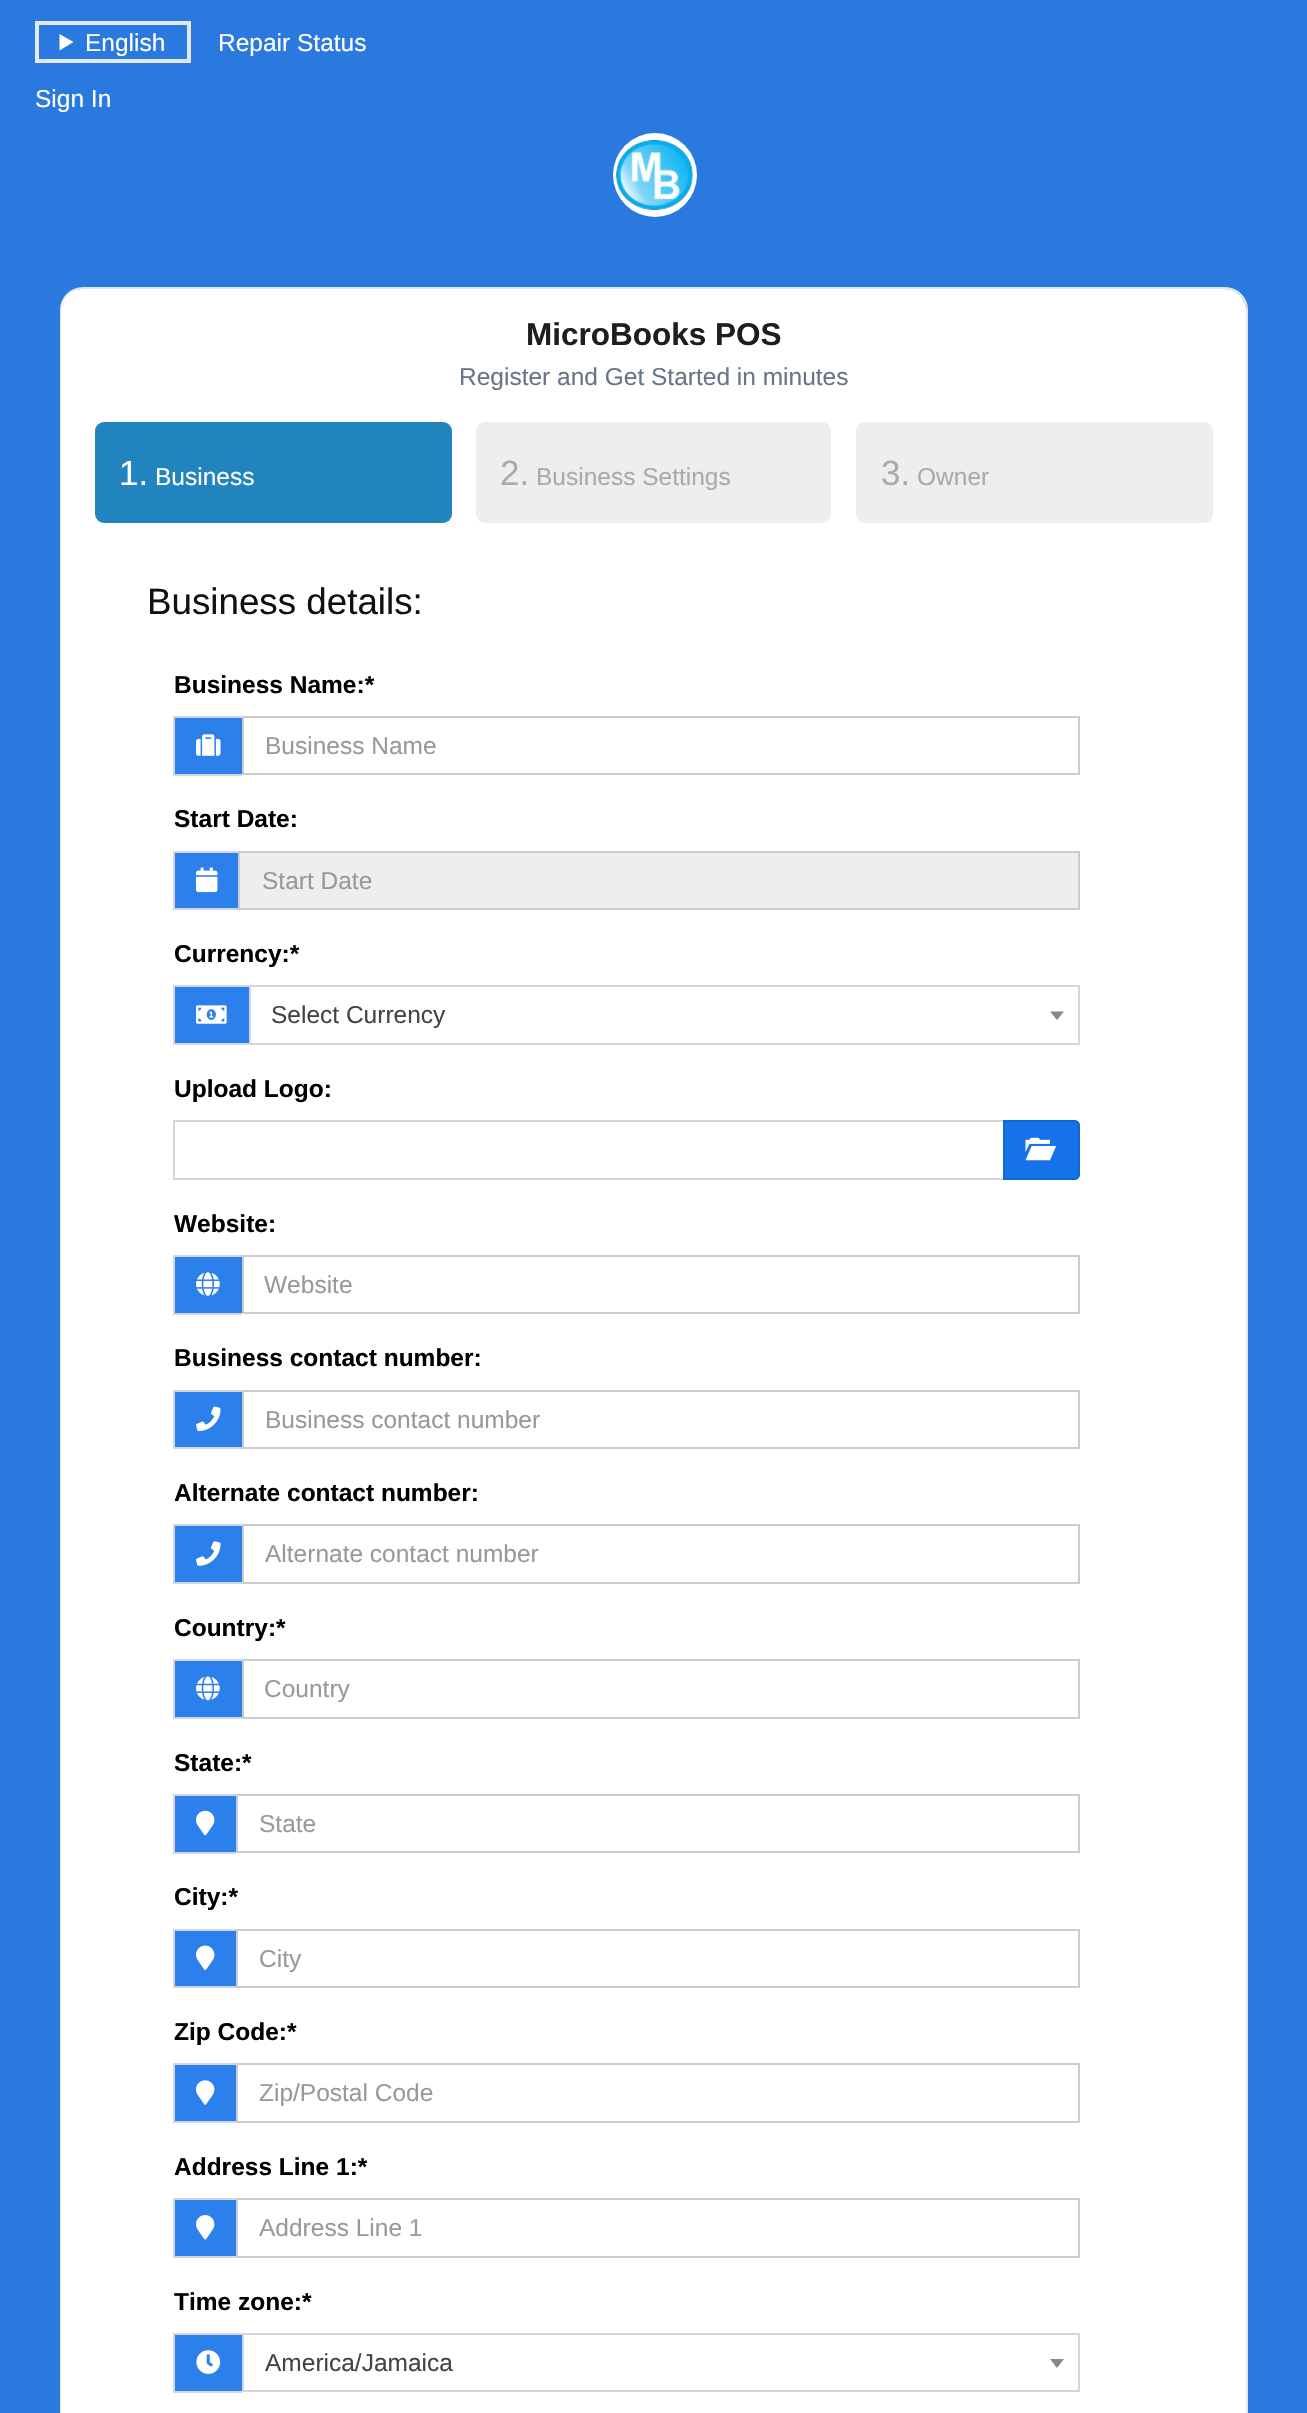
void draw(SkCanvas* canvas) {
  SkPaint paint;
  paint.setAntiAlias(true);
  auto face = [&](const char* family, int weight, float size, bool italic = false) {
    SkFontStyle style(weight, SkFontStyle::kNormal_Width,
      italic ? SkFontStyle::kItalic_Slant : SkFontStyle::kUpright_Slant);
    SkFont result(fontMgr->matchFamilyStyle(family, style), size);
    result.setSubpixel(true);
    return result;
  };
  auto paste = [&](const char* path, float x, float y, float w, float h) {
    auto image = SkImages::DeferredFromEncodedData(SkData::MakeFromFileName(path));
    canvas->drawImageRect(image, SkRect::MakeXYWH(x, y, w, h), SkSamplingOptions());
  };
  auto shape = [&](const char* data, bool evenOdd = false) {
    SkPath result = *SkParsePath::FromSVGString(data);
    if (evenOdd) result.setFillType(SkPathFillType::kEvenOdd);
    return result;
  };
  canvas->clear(0xff2a79df);
  paint.setStroke(true);
  paint.setStrokeWidth(4);
  paint.setColor(0xffe3e8ef);
  canvas->drawRect(SkRect::MakeXYWH(37, 23, 152, 38), paint);
  paint.setStroke(false);
  paint.setColor(0xffffffff);
  canvas->drawPath(shape("M59.5 34L73.5 42L59.5 50.5Z"), paint);
  canvas->drawCircle(655, 175, 42, paint);
  paste("img/1.png", 616, 140, 77, 70);
  paint.setStroke(true);
  paint.setStrokeWidth(2);
  paint.setColor(0xffe3e8ef);
  canvas->drawRoundRect(SkRect::MakeXYWH(61, 288, 1186, 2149), 22, 22, paint);
  paint.setStroke(false);
  paint.setColor(0xffffffff);
  canvas->drawRoundRect(SkRect::MakeXYWH(61, 289, 1185, 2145), 21, 21, paint);
  paint.setColor(0xff2184be);
  canvas->drawRoundRect(SkRect::MakeXYWH(95, 422, 357, 101), 9, 9, paint);
  paint.setColor(0xffeeeeee);
  canvas->drawRoundRect(SkRect::MakeXYWH(476, 422, 355, 101), 9, 9, paint);
  canvas->drawRoundRect(SkRect::MakeXYWH(856, 422, 357, 101), 9, 9, paint);
  {
    const struct { float x, y, w, h; SkColor color; } items[] = {
      {175, 718, 67, 56, 0xff2b80ec},
      {173, 716, 69, 2, 0xffd2d6de},
      {173, 774, 69, 2, 0xffd2d6de},
      {173, 716, 2, 59, 0xffd2d6de},
    };
    for (auto [x, y, w, h, color] : items) {
      paint.setColor(color);
      canvas->drawRect(SkRect::MakeXYWH(x, y, w, h), paint);
    }
  }
  paste("img/2.png", 196, 734, 25, 22);
  paint.setStroke(true);
  paint.setColor(0xffcccccc);
  canvas->drawRect(SkRect::MakeXYWH(243, 717, 836, 57), paint);
  paint.setStroke(false);
  {
    const struct { float x, y, w, h; SkColor color; } items[] = {
      {175, 853, 63, 55, 0xff2b80ec},
      {173, 851, 65, 2, 0xffd2d6de},
      {173, 908, 65, 2, 0xffd2d6de},
      {173, 851, 2, 59, 0xffd2d6de},
    };
    for (auto [x, y, w, h, color] : items) {
      paint.setColor(color);
      canvas->drawRect(SkRect::MakeXYWH(x, y, w, h), paint);
    }
  }
  paste("img/3.png", 196, 867, 22, 26);
  paint.setColor(0xffeeeeee);
  canvas->drawRect(SkRect::MakeXYWH(239, 852, 840, 57), paint);
  paint.setStroke(true);
  paint.setColor(0xffcccccc);
  canvas->drawRect(SkRect::MakeXYWH(239, 852, 840, 57), paint);
  paint.setStroke(false);
  {
    const struct { float x, y, w, h; SkColor color; } items[] = {
      {175, 987, 74, 56, 0xff2b80ec},
      {173, 985, 76, 2, 0xffd2d6de},
      {173, 1043, 76, 2, 0xffd2d6de},
      {173, 985, 2, 60, 0xffd2d6de},
    };
    for (auto [x, y, w, h, color] : items) {
      paint.setColor(color);
      canvas->drawRect(SkRect::MakeXYWH(x, y, w, h), paint);
    }
  }
  paste("img/4.png", 196, 1005, 31, 19);
  paint.setStroke(true);
  canvas->drawRect(SkRect::MakeXYWH(250, 986, 829, 58), paint);
  paint.setStroke(false);
  paint.setColor(0xff888888);
  canvas->drawPath(shape("M1050 1011.5H1064L1057 1020Z"), paint);
  paint.setStroke(true);
  paint.setColor(0xffd2d6de);
  canvas->drawRect(SkRect::MakeXYWH(174, 1121, 830, 58), paint);
  paint.setStroke(false);
  paint.setColor(0xff1572e8);
  canvas->drawPath(shape("M1004 1121H1075C1077 1121 1079 1123 1079 1125V1175C1079 1177 1077 1179 1075 1179H1004Z"), paint);
  paint.setStroke(true);
  paint.setColor(0xff1367d1);
  canvas->drawPath(shape("M1004 1121H1075C1077 1121 1079 1123 1079 1125V1175C1079 1177 1077 1179 1075 1179H1004Z"), paint);
  paste("img/5.png", 1025, 1137, 31, 24);
  paint.setStroke(false);
  {
    const struct { float x, y, w, h; SkColor color; } items[] = {
      {175, 1257, 67, 56, 0xff2b80ec},
      {173, 1255, 69, 2, 0xffd2d6de},
      {173, 1313, 69, 2, 0xffd2d6de},
      {173, 1255, 2, 59, 0xffd2d6de},
    };
    for (auto [x, y, w, h, color] : items) {
      paint.setColor(color);
      canvas->drawRect(SkRect::MakeXYWH(x, y, w, h), paint);
    }
  }
  paste("img/6.png", 196, 1272, 24, 24);
  paint.setStroke(true);
  paint.setColor(0xffcccccc);
  canvas->drawRect(SkRect::MakeXYWH(243, 1256, 836, 57), paint);
  paint.setStroke(false);
  {
    const struct { float x, y, w, h; SkColor color; } items[] = {
      {175, 1392, 67, 55, 0xff2b80ec},
      {173, 1390, 69, 2, 0xffd2d6de},
      {173, 1447, 69, 2, 0xffd2d6de},
      {173, 1390, 2, 59, 0xffd2d6de},
    };
    for (auto [x, y, w, h, color] : items) {
      paint.setColor(color);
      canvas->drawRect(SkRect::MakeXYWH(x, y, w, h), paint);
    }
  }
  paste("img/7.png", 196, 1406, 25, 26);
  paint.setStroke(true);
  paint.setColor(0xffcccccc);
  canvas->drawRect(SkRect::MakeXYWH(243, 1391, 836, 57), paint);
  paint.setStroke(false);
  {
    const struct { float x, y, w, h; SkColor color; } items[] = {
      {175, 1526, 67, 56, 0xff2b80ec},
      {173, 1524, 69, 2, 0xffd2d6de},
      {173, 1582, 69, 2, 0xffd2d6de},
      {173, 1524, 2, 60, 0xffd2d6de},
    };
    for (auto [x, y, w, h, color] : items) {
      paint.setColor(color);
      canvas->drawRect(SkRect::MakeXYWH(x, y, w, h), paint);
    }
  }
  paste("img/8.png", 196, 1541, 25, 25);
  paint.setStroke(true);
  paint.setColor(0xffcccccc);
  canvas->drawRect(SkRect::MakeXYWH(243, 1525, 836, 58), paint);
  paint.setStroke(false);
  {
    const struct { float x, y, w, h; SkColor color; } items[] = {
      {175, 1661, 67, 56, 0xff2b80ec},
      {173, 1659, 69, 2, 0xffd2d6de},
      {173, 1717, 69, 2, 0xffd2d6de},
      {173, 1659, 2, 60, 0xffd2d6de},
    };
    for (auto [x, y, w, h, color] : items) {
      paint.setColor(color);
      canvas->drawRect(SkRect::MakeXYWH(x, y, w, h), paint);
    }
  }
  paste("img/9.png", 196, 1676, 24, 25);
  paint.setStroke(true);
  paint.setColor(0xffcccccc);
  canvas->drawRect(SkRect::MakeXYWH(243, 1660, 836, 58), paint);
  paint.setStroke(false);
  {
    const struct { float x, y, w, h; SkColor color; } items[] = {
      {175, 1796, 61, 56, 0xff2b80ec},
      {173, 1794, 63, 2, 0xffd2d6de},
      {173, 1852, 63, 2, 0xffd2d6de},
      {173, 1794, 2, 59, 0xffd2d6de},
    };
    for (auto [x, y, w, h, color] : items) {
      paint.setColor(color);
      canvas->drawRect(SkRect::MakeXYWH(x, y, w, h), paint);
    }
  }
  paste("img/10.png", 196, 1810, 19, 26);
  paint.setStroke(true);
  paint.setColor(0xffcccccc);
  canvas->drawRect(SkRect::MakeXYWH(237, 1795, 842, 57), paint);
  paint.setStroke(false);
  {
    const struct { float x, y, w, h; SkColor color; } items[] = {
      {175, 1931, 61, 55, 0xff2b80ec},
      {173, 1929, 63, 2, 0xffd2d6de},
      {173, 1986, 63, 2, 0xffd2d6de},
      {173, 1929, 2, 59, 0xffd2d6de},
    };
    for (auto [x, y, w, h, color] : items) {
      paint.setColor(color);
      canvas->drawRect(SkRect::MakeXYWH(x, y, w, h), paint);
    }
  }
  paste("img/11.png", 196, 1945, 19, 25);
  paint.setStroke(true);
  paint.setColor(0xffcccccc);
  canvas->drawRect(SkRect::MakeXYWH(237, 1930, 842, 57), paint);
  paint.setStroke(false);
  {
    const struct { float x, y, w, h; SkColor color; } items[] = {
      {175, 2065, 61, 56, 0xff2b80ec},
      {173, 2063, 63, 2, 0xffd2d6de},
      {173, 2121, 63, 2, 0xffd2d6de},
      {173, 2063, 2, 60, 0xffd2d6de},
    };
    for (auto [x, y, w, h, color] : items) {
      paint.setColor(color);
      canvas->drawRect(SkRect::MakeXYWH(x, y, w, h), paint);
    }
  }
  paste("img/12.png", 196, 2080, 19, 25);
  paint.setStroke(true);
  paint.setColor(0xffcccccc);
  canvas->drawRect(SkRect::MakeXYWH(237, 2064, 842, 58), paint);
  paint.setStroke(false);
  {
    const struct { float x, y, w, h; SkColor color; } items[] = {
      {175, 2200, 61, 56, 0xff2b80ec},
      {173, 2198, 63, 2, 0xffd2d6de},
      {173, 2256, 63, 2, 0xffd2d6de},
      {173, 2198, 2, 60, 0xffd2d6de},
    };
    for (auto [x, y, w, h, color] : items) {
      paint.setColor(color);
      canvas->drawRect(SkRect::MakeXYWH(x, y, w, h), paint);
    }
  }
  paste("img/13.png", 196, 2215, 19, 25);
  paint.setStroke(true);
  paint.setColor(0xffcccccc);
  canvas->drawRect(SkRect::MakeXYWH(237, 2199, 842, 58), paint);
  paint.setStroke(false);
  {
    const struct { float x, y, w, h; SkColor color; } items[] = {
      {175, 2335, 67, 56, 0xff2b80ec},
      {173, 2333, 69, 2, 0xffd2d6de},
      {173, 2391, 69, 2, 0xffd2d6de},
      {173, 2333, 2, 59, 0xffd2d6de},
    };
    for (auto [x, y, w, h, color] : items) {
      paint.setColor(color);
      canvas->drawRect(SkRect::MakeXYWH(x, y, w, h), paint);
    }
  }
  paste("img/14.png", 196, 2350, 25, 24);
  paint.setStroke(true);
  canvas->drawRect(SkRect::MakeXYWH(243, 2334, 836, 57), paint);
  paint.setStroke(false);
  paint.setColor(0xff888888);
  canvas->drawPath(shape("M1050 2359H1064L1057 2368Z"), paint);
  auto f0 = face("Liberation Sans", 400, 24.5f);
  paint.setColor(0xffffffff);
  {
    const struct { const char* s; float x, y; } items[] = {
      {"English", 85, 51},
      {"Repair Status", 218, 51},
      {"Sign In", 35, 107},
    };
    for (auto [s, x, y] : items) {
      canvas->drawString(s, x, y, f0, paint);
    }
  }
  auto f1 = face("Liberation Sans", 700, 31.5f);
  paint.setColor(0xff1e1e1e);
  canvas->drawString("MicroBooks POS", 526, 345, f1, paint);
  paint.setColor(0xff697586);
  canvas->drawString("Register and Get Started in minutes", 459, 385, f0, paint);
  auto f2 = face("Liberation Sans", 400, 35);
  paint.setColor(0xffffffff);
  canvas->drawString("1.", 119, 485, f2, paint);
  canvas->drawString("Business", 155, 485, f0, paint);
  paint.setColor(0xffaaaaaa);
  canvas->drawString("2.", 500, 485, f2, paint);
  canvas->drawString("Business Settings", 536, 485, f0, paint);
  canvas->drawString("3.", 881, 485, f2, paint);
  canvas->drawString("Owner", 917, 485, f0, paint);
  auto f3 = face("Liberation Sans", 400, 36.75f);
  paint.setColor(0xff111111);
  canvas->drawString("Business details:", 147, 614, f3, paint);
  auto f4 = face("Liberation Sans", 700, 24.5f);
  paint.setColor(0xff000000);
  canvas->drawString("Business Name:*", 174, 693, f4, paint);
  paint.setColor(0xff999999);
  canvas->drawString("Business Name", 265, 754, f0, paint);
  paint.setColor(0xff000000);
  canvas->drawString("Start Date:", 174, 827, f4, paint);
  paint.setColor(0xff999999);
  canvas->drawString("Start Date", 262, 889, f0, paint);
  paint.setColor(0xff000000);
  canvas->drawString("Currency:*", 174, 962, f4, paint);
  paint.setColor(0xff444444);
  canvas->drawString("Select Currency", 271, 1023, f0, paint);
  paint.setColor(0xff000000);
  canvas->drawString("Upload Logo:", 174, 1097, f4, paint);
  canvas->drawString("Website:", 174, 1232, f4, paint);
  paint.setColor(0xff999999);
  canvas->drawString("Website", 264, 1293, f0, paint);
  paint.setColor(0xff000000);
  canvas->drawString("Business contact number:", 174, 1366, f4, paint);
  paint.setColor(0xff999999);
  canvas->drawString("Business contact number", 265, 1428, f0, paint);
  paint.setColor(0xff000000);
  canvas->drawString("Alternate contact number:", 174, 1501, f4, paint);
  paint.setColor(0xff999999);
  canvas->drawString("Alternate contact number", 265, 1562, f0, paint);
  paint.setColor(0xff000000);
  canvas->drawString("Country:*", 174, 1636, f4, paint);
  paint.setColor(0xff999999);
  canvas->drawString("Country", 264, 1697, f0, paint);
  paint.setColor(0xff000000);
  canvas->drawString("State:*", 174, 1771, f4, paint);
  paint.setColor(0xff999999);
  canvas->drawString("State", 259, 1832, f0, paint);
  paint.setColor(0xff000000);
  canvas->drawString("City:*", 174, 1905, f4, paint);
  paint.setColor(0xff999999);
  canvas->drawString("City", 259, 1967, f0, paint);
  paint.setColor(0xff000000);
  canvas->drawString("Zip Code:*", 174, 2040, f4, paint);
  paint.setColor(0xff999999);
  canvas->drawString("Zip/Postal Code", 259, 2101, f0, paint);
  paint.setColor(0xff000000);
  canvas->drawString("Address Line 1:*", 174, 2175, f4, paint);
  paint.setColor(0xff999999);
  canvas->drawString("Address Line 1", 259, 2236, f0, paint);
  paint.setColor(0xff000000);
  canvas->drawString("Time zone:*", 174, 2310, f4, paint);
  paint.setColor(0xff444444);
  canvas->drawString("America/Jamaica", 265, 2371, f0, paint);
}
